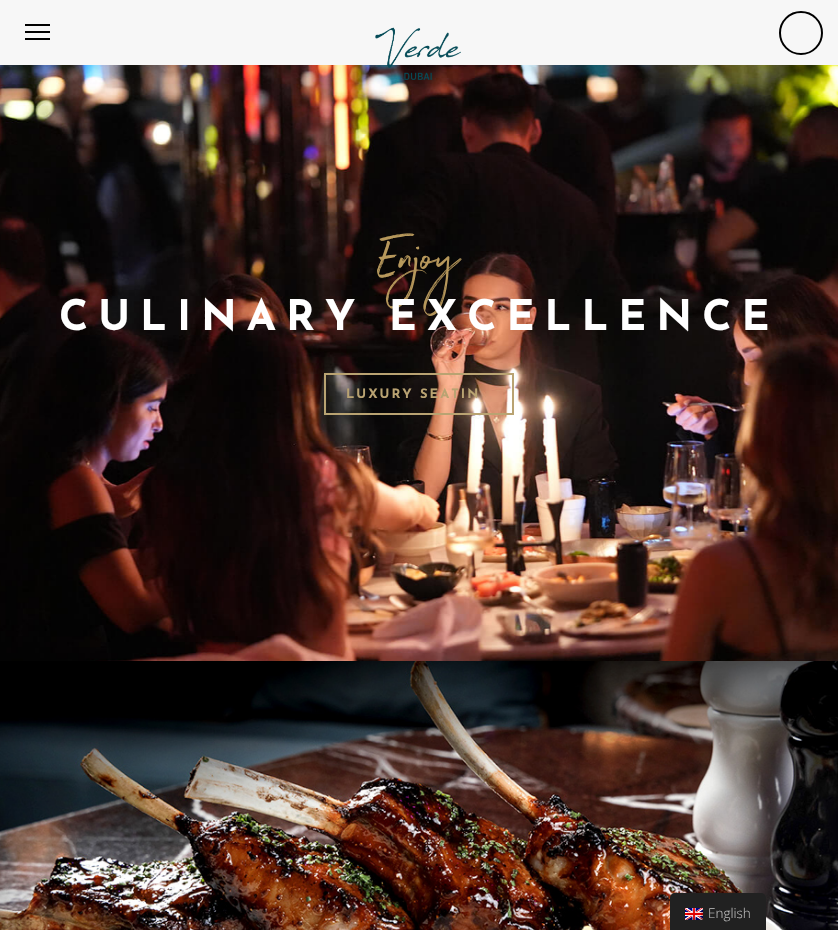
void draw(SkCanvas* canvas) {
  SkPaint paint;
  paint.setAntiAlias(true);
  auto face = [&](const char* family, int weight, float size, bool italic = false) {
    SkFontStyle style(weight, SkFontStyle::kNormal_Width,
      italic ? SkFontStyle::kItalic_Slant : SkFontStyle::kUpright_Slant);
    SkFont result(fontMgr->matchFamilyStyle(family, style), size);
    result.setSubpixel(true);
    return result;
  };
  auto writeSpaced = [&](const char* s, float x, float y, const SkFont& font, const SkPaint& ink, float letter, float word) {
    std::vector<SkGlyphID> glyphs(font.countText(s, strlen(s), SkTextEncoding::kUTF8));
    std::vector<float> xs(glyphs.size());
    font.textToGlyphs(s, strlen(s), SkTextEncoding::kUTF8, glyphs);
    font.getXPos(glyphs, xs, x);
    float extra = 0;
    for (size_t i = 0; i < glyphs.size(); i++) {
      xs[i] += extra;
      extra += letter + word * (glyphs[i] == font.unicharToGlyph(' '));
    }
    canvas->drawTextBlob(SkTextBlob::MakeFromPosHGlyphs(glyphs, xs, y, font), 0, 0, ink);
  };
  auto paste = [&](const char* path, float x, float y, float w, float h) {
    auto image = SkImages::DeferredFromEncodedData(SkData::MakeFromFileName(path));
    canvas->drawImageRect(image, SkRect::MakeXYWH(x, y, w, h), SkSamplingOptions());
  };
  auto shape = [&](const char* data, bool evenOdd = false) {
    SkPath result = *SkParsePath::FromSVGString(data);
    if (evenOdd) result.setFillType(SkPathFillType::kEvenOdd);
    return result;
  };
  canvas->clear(0xffffffff);
  paint.setColor(0xfff7f7f7);
  canvas->drawRect(SkRect::MakeXYWH(0, 0, 838, 65), paint);
  paste("img/2.png", 0, 65, 838, 596);
  paste("img/1.png", 375, 27, 86, 53);
  {
    const struct { float x, y, w, h; SkColor color; } items[] = {
      {25, 31, 25, 2, 0xff000000},
      {25, 24, 25, 2, 0xff000000},
      {25, 38, 25, 2, 0xff000000},
    };
    for (auto [x, y, w, h, color] : items) {
      paint.setColor(color);
      canvas->drawRect(SkRect::MakeXYWH(x, y, w, h), paint);
    }
  }
  paint.setStroke(true);
  paint.setStrokeWidth(2);
  canvas->drawCircle(801, 33, 21, paint);
  paint.setColor(0xffb9a372);
  canvas->drawRect(SkRect::MakeXYWH(325, 374, 188, 40), paint);
  paste("img/3.png", 0, 661, 838, 269);
  paint.setStroke(false);
  paint.setColor(0xff212121);
  canvas->drawPath(shape("M675 893H761C764 893 766 895 766 898V930H670V898C670 895 672 893 675 893Z"), paint);
  paste("img/4.png", 685, 908, 18, 12);
  auto f0 = face("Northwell", 400, 60);
  paint.setColor(0xffb7985b);
  canvas->drawString("Enjoy", 379, 269, f0, paint);
  auto f1 = face("Josefin Sans", 700, 42);
  paint.setColor(0xffffffff);
  writeSpaced("CULINARY EXCELLENCE", 59, 330, f1, paint, 10, 0);
  auto f2 = face("Josefin Sans", 700, 13);
  paint.setColor(0xffb9a372);
  writeSpaced("LUXURY SEATIN", 346, 398, f2, paint, 2, 0);
  auto f3 = face("Open Sans", 300, 13.5f);
  paint.setColor(0xffbdbdbd);
  canvas->drawString("English", 708, 918, f3, paint);
}
